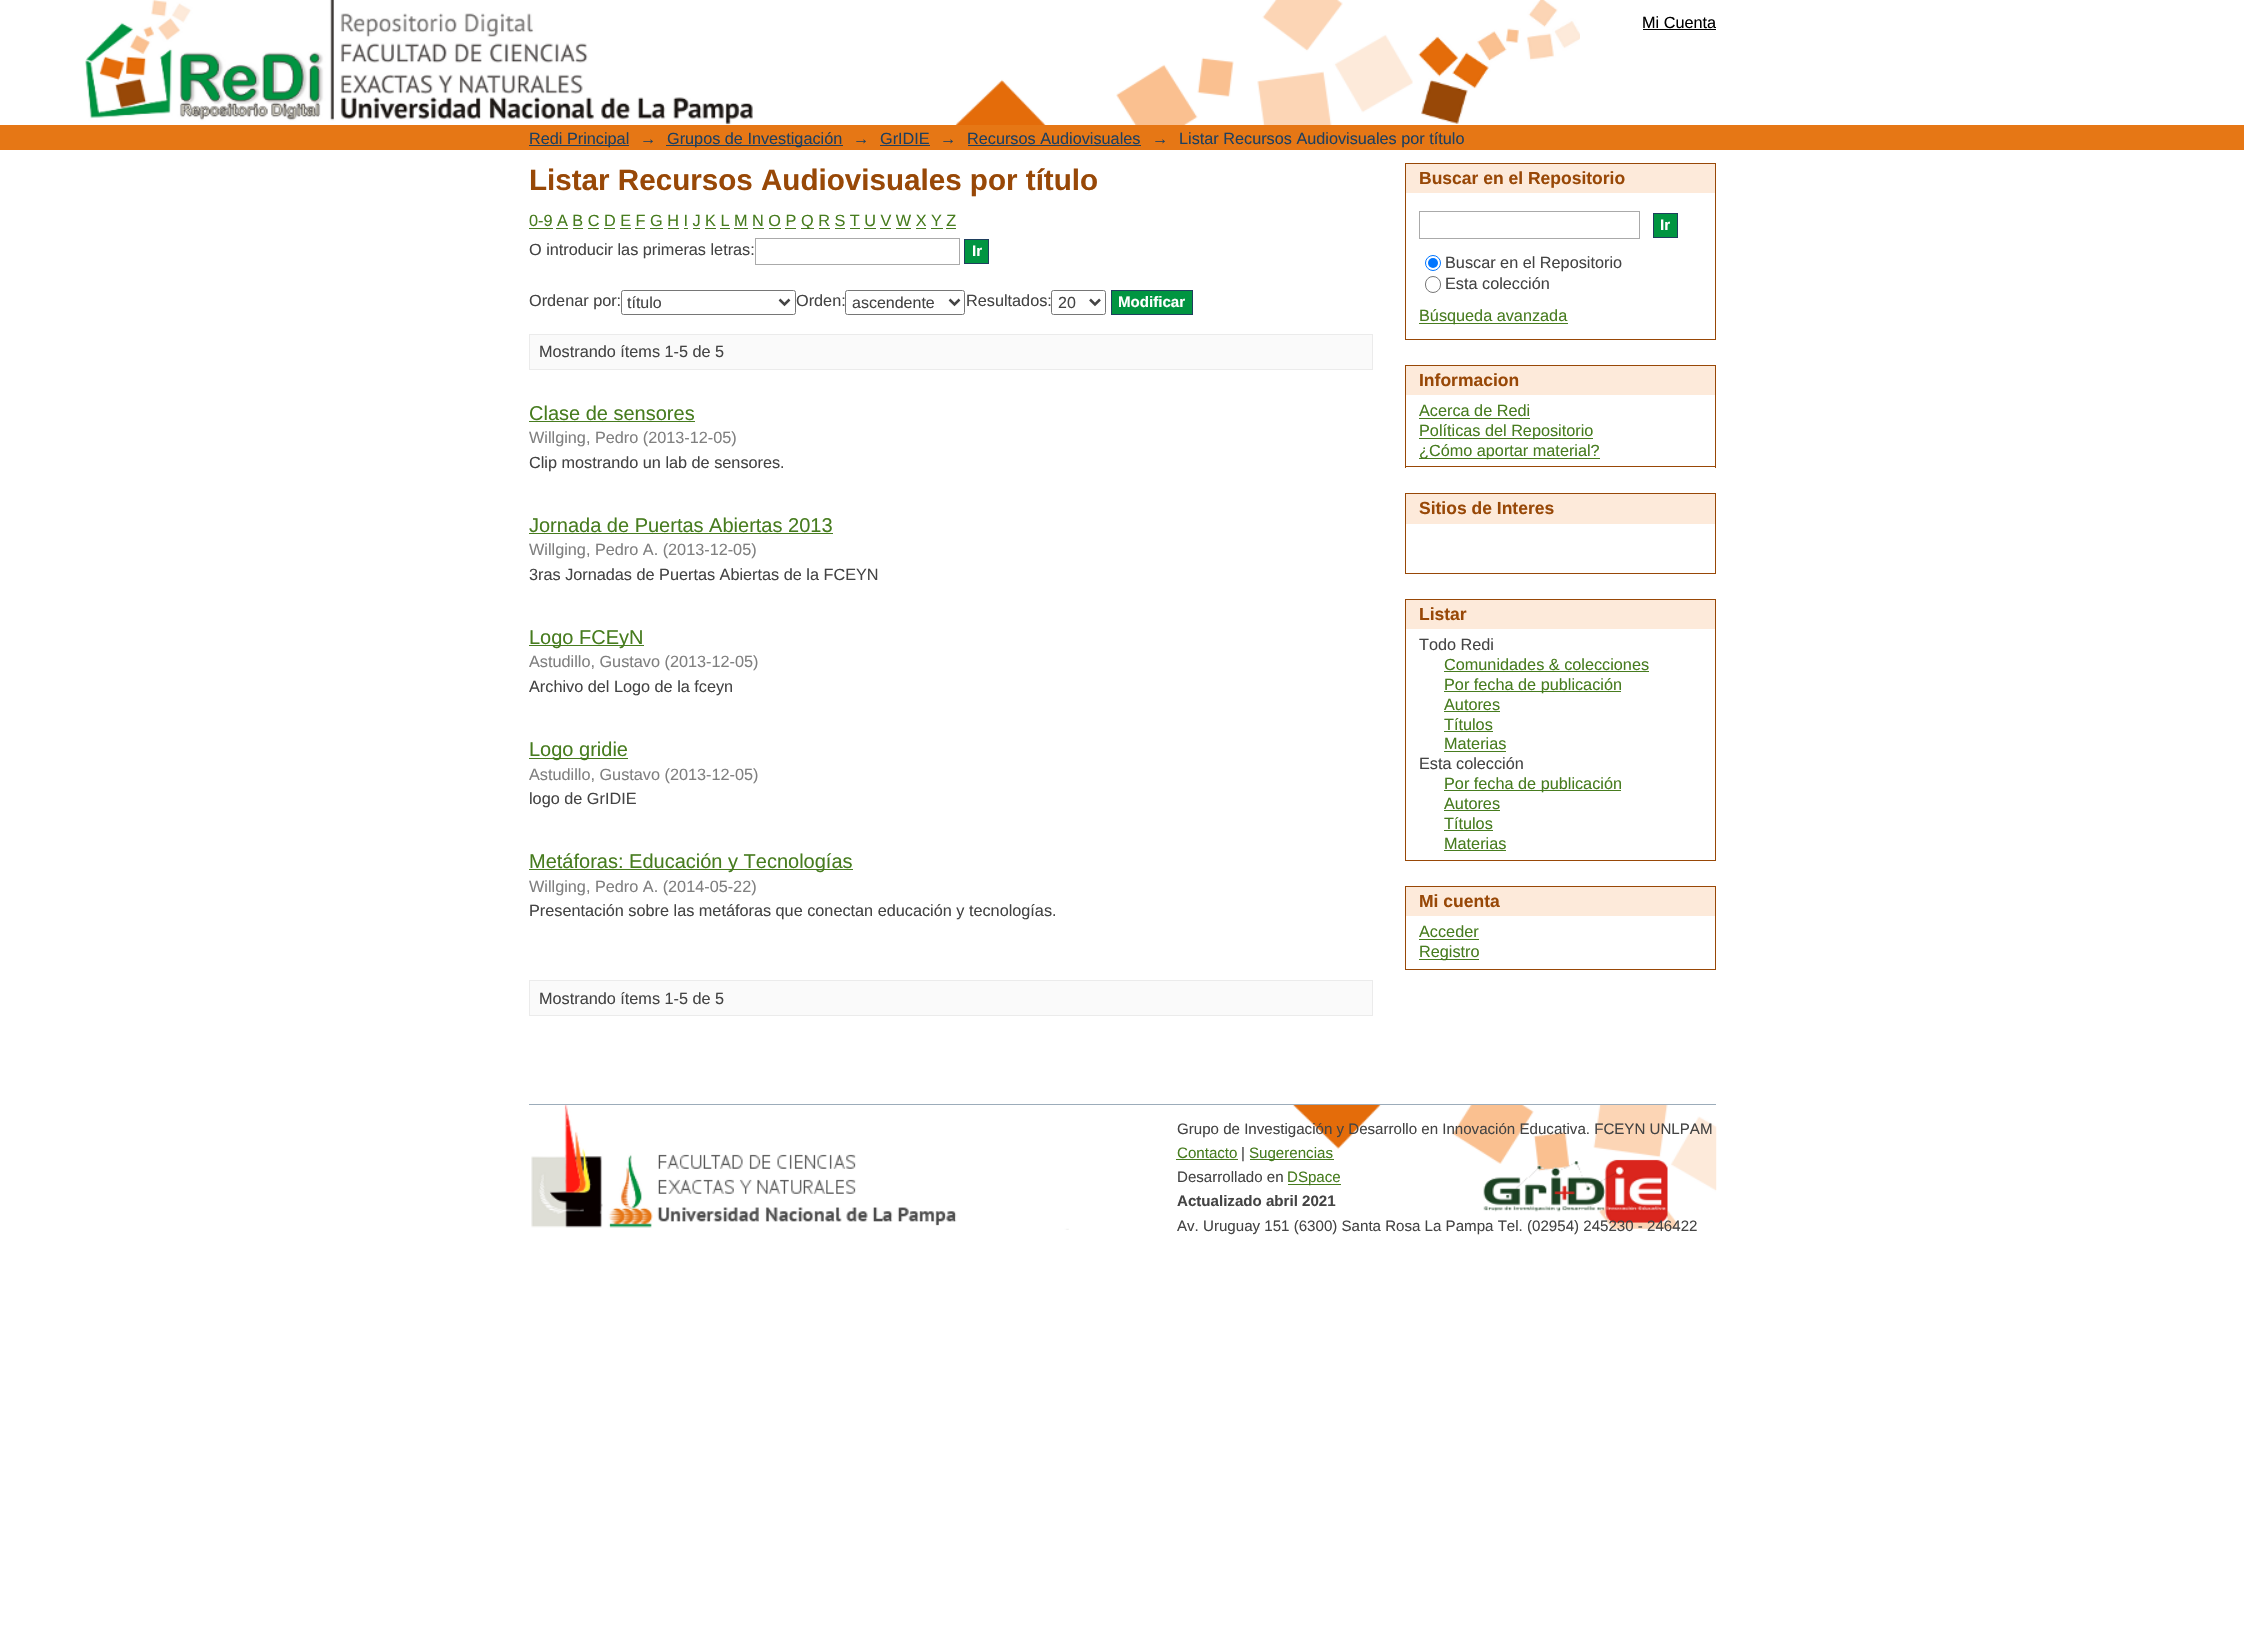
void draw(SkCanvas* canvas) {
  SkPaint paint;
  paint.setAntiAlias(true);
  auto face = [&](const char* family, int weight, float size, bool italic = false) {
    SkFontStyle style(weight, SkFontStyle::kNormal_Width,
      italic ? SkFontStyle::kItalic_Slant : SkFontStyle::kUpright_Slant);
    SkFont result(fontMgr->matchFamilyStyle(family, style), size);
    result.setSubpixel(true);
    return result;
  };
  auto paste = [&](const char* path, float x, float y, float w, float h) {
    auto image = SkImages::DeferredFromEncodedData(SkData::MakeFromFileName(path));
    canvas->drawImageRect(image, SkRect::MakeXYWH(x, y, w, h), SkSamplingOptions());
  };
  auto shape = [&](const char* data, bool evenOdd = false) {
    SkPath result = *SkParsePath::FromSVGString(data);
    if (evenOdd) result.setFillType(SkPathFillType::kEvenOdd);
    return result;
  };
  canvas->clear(0xffffffff);
  paste("img/1.png", 85, 0, 1495, 125);
  {
    const struct { float x, y, w, h; SkColor color; } items[] = {
      {1643, 29, 73, 1, 0xff000000},
      {0, 125, 2244, 25, 0xffe67715},
      {529, 145, 100, 1, 0xff1f3f5e},
      {666, 145, 177, 1, 0xff1f3f5e},
      {880, 145, 50, 1, 0xff1f3f5e},
      {968, 145, 173, 1, 0xff1f3f5e},
      {529, 228, 24, 1, 0xff477c1f},
      {801, 228, 13, 1, 0xff477c1f},
      {556, 228, 12, 1, 0xff477c1f},
      {573, 228, 10, 1, 0xff477c1f},
      {588, 228, 11, 1, 0xff477c1f},
      {604, 228, 11, 1, 0xff477c1f},
      {620, 228, 11, 1, 0xff477c1f},
      {635, 228, 10, 1, 0xff477c1f},
      {650, 228, 13, 1, 0xff477c1f},
      {668, 228, 11, 1, 0xff477c1f},
      {684, 228, 4, 1, 0xff477c1f},
      {693, 228, 7, 1, 0xff477c1f},
      {705, 228, 11, 1, 0xff477c1f},
      {720, 228, 10, 1, 0xff477c1f},
      {734, 228, 14, 1, 0xff477c1f},
      {753, 228, 11, 1, 0xff477c1f},
      {769, 228, 12, 1, 0xff477c1f},
      {785, 228, 11, 1, 0xff477c1f},
      {819, 228, 11, 1, 0xff477c1f},
      {835, 228, 10, 1, 0xff477c1f},
      {850, 228, 10, 1, 0xff477c1f},
      {864, 228, 12, 1, 0xff477c1f},
      {880, 228, 11, 1, 0xff477c1f},
      {896, 228, 15, 1, 0xff477c1f},
      {916, 228, 10, 1, 0xff477c1f},
      {931, 228, 12, 1, 0xff477c1f},
      {946, 228, 10, 1, 0xff477c1f},
    };
    for (auto [x, y, w, h, color] : items) {
      paint.setColor(color);
      canvas->drawRect(SkRect::MakeXYWH(x, y, w, h), paint);
    }
  }
  paint.setStroke(true);
  paint.setStrokeWidth(1);
  paint.setColor(0xffaaaaaa);
  canvas->drawRect(SkRect::MakeXYWH(755.5f, 238.5f, 204, 26), paint);
  paint.setStroke(false);
  paint.setColor(0xff009541);
  canvas->drawRect(SkRect::MakeXYWH(964.5f, 239.5f, 24, 24), paint);
  paint.setStroke(true);
  paint.setColor(0xff1f3f5e);
  canvas->drawRect(SkRect::MakeXYWH(964.5f, 239.5f, 24, 24), paint);
  paint.setColor(0xff767676);
  canvas->drawRoundRect(SkRect::MakeXYWH(621.5f, 290.5f, 174, 24), 2, 2, paint);
  paint.setStrokeWidth(2.5f);
  paint.setColor(0xff444444);
  canvas->drawPath(shape("M779.5 299.5L784.5 304.5L789.5 299.5"), paint);
  paint.setStrokeWidth(1);
  paint.setColor(0xff767676);
  canvas->drawRoundRect(SkRect::MakeXYWH(845.5f, 290.5f, 119, 24), 2, 2, paint);
  paint.setStrokeWidth(2.5f);
  paint.setColor(0xff444444);
  canvas->drawPath(shape("M949.5 299.5L954.5 304.5L959.5 299.5"), paint);
  paint.setStrokeWidth(1);
  paint.setColor(0xff767676);
  canvas->drawRoundRect(SkRect::MakeXYWH(1051.5f, 290.5f, 54, 24), 2, 2, paint);
  paint.setStrokeWidth(2.5f);
  paint.setColor(0xff444444);
  canvas->drawPath(shape("M1090 299.5L1095 304.5L1100 299.5"), paint);
  paint.setStroke(false);
  paint.setColor(0xff009541);
  canvas->drawRect(SkRect::MakeXYWH(1111.5f, 290.5f, 81, 24), paint);
  paint.setStroke(true);
  paint.setStrokeWidth(1);
  paint.setColor(0xff1f3f5e);
  canvas->drawRect(SkRect::MakeXYWH(1111.5f, 290.5f, 81, 24), paint);
  paint.setStroke(false);
  paint.setColor(0xfffafafa);
  canvas->drawRect(SkRect::MakeXYWH(529.5f, 334.5f, 843, 35), paint);
  paint.setStroke(true);
  paint.setColor(0xffebebeb);
  canvas->drawRect(SkRect::MakeXYWH(529.5f, 334.5f, 843, 35), paint);
  paint.setStroke(false);
  {
    const struct { float x, y, w, h; SkColor color; } items[] = {
      {529, 421, 166, 1, 0xff477c1f},
      {529, 533, 304, 1, 0xff477c1f},
      {529, 645, 115, 1, 0xff477c1f},
      {529, 758, 99, 1, 0xff477c1f},
      {529, 869, 324, 1, 0xff477c1f},
    };
    for (auto [x, y, w, h, color] : items) {
      paint.setColor(color);
      canvas->drawRect(SkRect::MakeXYWH(x, y, w, h), paint);
    }
  }
  paint.setColor(0xfffafafa);
  canvas->drawRect(SkRect::MakeXYWH(529.5f, 980.5f, 843, 35), paint);
  paint.setStroke(true);
  paint.setColor(0xffebebeb);
  canvas->drawRect(SkRect::MakeXYWH(529.5f, 980.5f, 843, 35), paint);
  paint.setStroke(false);
  {
    const struct { float x, y, w, h; SkColor color; } items[] = {
      {1406, 164, 309, 29, 0xfffdeada},
      {1405, 163, 311, 1, 0xff984807},
      {1715, 163, 1, 177, 0xff984807},
      {1405, 163, 1, 30, 0xff984807},
      {1405, 339, 311, 1, 0xff984807},
      {1405, 193, 1, 147, 0xff984807},
    };
    for (auto [x, y, w, h, color] : items) {
      paint.setColor(color);
      canvas->drawRect(SkRect::MakeXYWH(x, y, w, h), paint);
    }
  }
  paint.setStroke(true);
  paint.setColor(0xffaaaaaa);
  canvas->drawRect(SkRect::MakeXYWH(1419.5f, 211.5f, 220, 27), paint);
  paint.setStroke(false);
  paint.setColor(0xff009541);
  canvas->drawRect(SkRect::MakeXYWH(1653.5f, 213.5f, 24, 24), paint);
  paint.setStroke(true);
  paint.setColor(0xff1f3f5e);
  canvas->drawRect(SkRect::MakeXYWH(1653.5f, 213.5f, 24, 24), paint);
  paint.setColor(0xff0075ff);
  canvas->drawCircle(1433, 263, 7.5f, paint);
  paint.setStroke(false);
  canvas->drawCircle(1433, 263, 5, paint);
  paint.setStroke(true);
  paint.setColor(0xff767676);
  canvas->drawRoundRect(SkRect::MakeXYWH(1425.5f, 276.5f, 15, 16), 7.5f, 7.5f, paint);
  paint.setStroke(false);
  {
    const struct { float x, y, w, h; SkColor color; } items[] = {
      {1419, 323, 149, 1, 0xff477c1f},
      {1406, 366, 309, 29, 0xfffdeada},
      {1405, 365, 311, 1, 0xff984807},
      {1715, 365, 1, 103, 0xff984807},
      {1405, 365, 1, 30, 0xff984807},
      {1405, 466, 311, 1, 0xff984807},
      {1405, 395, 1, 73, 0xff984807},
      {1419, 418, 111, 1, 0xff477c1f},
      {1419, 438, 174, 1, 0xff477c1f},
      {1419, 458, 181, 1, 0xff477c1f},
      {1406, 494, 309, 30, 0xfffdeada},
      {1405, 493, 311, 1, 0xff984807},
      {1715, 493, 1, 81, 0xff984807},
      {1405, 493, 1, 31, 0xff984807},
      {1405, 573, 311, 1, 0xff984807},
      {1405, 524, 1, 50, 0xff984807},
      {1406, 600, 309, 29, 0xfffdeada},
      {1405, 599, 311, 1, 0xff984807},
      {1715, 599, 1, 262, 0xff984807},
      {1405, 599, 1, 30, 0xff984807},
      {1405, 860, 311, 1, 0xff984807},
      {1405, 629, 1, 232, 0xff984807},
      {1444, 671, 205, 1, 0xff477c1f},
      {1444, 691, 177, 1, 0xff477c1f},
      {1444, 711, 56, 1, 0xff477c1f},
      {1444, 731, 49, 1, 0xff477c1f},
      {1444, 751, 62, 1, 0xff477c1f},
      {1444, 790, 177, 1, 0xff477c1f},
      {1444, 810, 56, 1, 0xff477c1f},
      {1444, 830, 49, 1, 0xff477c1f},
      {1444, 850, 62, 1, 0xff477c1f},
      {1406, 887, 309, 29, 0xfffdeada},
      {1405, 886, 311, 1, 0xff984807},
      {1715, 886, 1, 84, 0xff984807},
      {1405, 886, 1, 30, 0xff984807},
      {1405, 969, 311, 1, 0xff984807},
      {1405, 916, 1, 54, 0xff984807},
      {1419, 939, 60, 1, 0xff477c1f},
      {1419, 959, 60, 1, 0xff477c1f},
    };
    for (auto [x, y, w, h, color] : items) {
      paint.setColor(color);
      canvas->drawRect(SkRect::MakeXYWH(x, y, w, h), paint);
    }
  }
  paste("img/2.png", 531, 1105, 1186, 125);
  {
    const struct { float x, y, w, h; SkColor color; } items[] = {
      {529, 1104, 1187, 1, 0xff9cacba},
      {1176, 1159, 62, 1, 0xff477c1f},
      {1250, 1159, 84, 1, 0xff477c1f},
      {1288, 1184, 53, 1, 0xff477c1f},
    };
    for (auto [x, y, w, h, color] : items) {
      paint.setColor(color);
      canvas->drawRect(SkRect::MakeXYWH(x, y, w, h), paint);
    }
  }
  auto f0 = face("Liberation Sans", 400, 16.25f);
  paint.setColor(0xff000000);
  canvas->drawString("Mi Cuenta", 1642, 28, f0, paint);
  paint.setColor(0xff1f3f5e);
  {
    const struct { const char* s; float x, y; } items[] = {
      {"Redi Principal", 529, 144},
      {"→", 640, 144},
      {"Grupos de Investigación", 667, 144},
      {"→", 853, 144},
      {"GrIDIE", 880, 144},
      {"→", 940, 144},
      {"Recursos Audiovisuales", 967, 144},
      {"→", 1152, 144},
      {"Listar Recursos Audiovisuales por título", 1179, 144},
    };
    for (auto [s, x, y] : items) {
      canvas->drawString(s, x, y, f0, paint);
    }
  }
  auto f1 = face("Liberation Sans", 700, 29.6f);
  paint.setColor(0xff984807);
  canvas->drawString("Listar Recursos Audiovisuales por título", 529, 190, f1, paint);
  paint.setColor(0xff477c1f);
  canvas->drawString("0-9 A B C D E F G H I J K L M N O P", 529, 226, f0, paint);
  canvas->drawString("Q R S T U V W X Y Z", 801, 226, f0, paint);
  paint.setColor(0xff444444);
  canvas->drawString("O introducir las primeras letras:", 529, 255, f0, paint);
  auto f2 = face("Liberation Sans", 700, 15.1f);
  paint.setColor(0xffffffff);
  canvas->drawString("Ir", 972, 256, f2, paint);
  paint.setColor(0xff444444);
  canvas->drawString("Ordenar por:", 529, 306, f0, paint);
  auto f3 = face("Liberation Sans", 400, 16);
  canvas->drawString("título", 627, 308, f3, paint);
  canvas->drawString("Orden:", 796, 306, f0, paint);
  canvas->drawString("ascendente", 852, 308, f3, paint);
  canvas->drawString("Resultados:", 966, 306, f0, paint);
  canvas->drawString("20", 1058, 308, f3, paint);
  paint.setColor(0xffffffff);
  canvas->drawString("Modificar", 1118, 307, f2, paint);
  paint.setColor(0xff444444);
  canvas->drawString("Mostrando ítems 1-5 de 5", 539, 357, f0, paint);
  auto f4 = face("Liberation Sans", 400, 20);
  paint.setColor(0xff477c1f);
  canvas->drawString("Clase de sensores", 529, 420, f4, paint);
  paint.setColor(0xff808080);
  canvas->drawString("Willging, Pedro (2013-12-05)", 529, 443, f0, paint);
  paint.setColor(0xff444444);
  canvas->drawString("Clip mostrando un lab de sensores.", 529, 468, f0, paint);
  paint.setColor(0xff477c1f);
  canvas->drawString("Jornada de Puertas Abiertas 2013", 529, 532, f4, paint);
  paint.setColor(0xff808080);
  canvas->drawString("Willging, Pedro A. (2013-12-05)", 529, 555, f0, paint);
  paint.setColor(0xff444444);
  canvas->drawString("3ras Jornadas de Puertas Abiertas de la FCEYN", 529, 580, f0, paint);
  paint.setColor(0xff477c1f);
  canvas->drawString("Logo FCEyN", 529, 644, f4, paint);
  paint.setColor(0xff808080);
  canvas->drawString("Astudillo, Gustavo (2013-12-05)", 529, 667, f0, paint);
  paint.setColor(0xff444444);
  canvas->drawString("Archivo del Logo de la fceyn", 529, 692, f0, paint);
  paint.setColor(0xff477c1f);
  canvas->drawString("Logo gridie", 529, 756, f4, paint);
  paint.setColor(0xff808080);
  canvas->drawString("Astudillo, Gustavo (2013-12-05)", 529, 780, f0, paint);
  paint.setColor(0xff444444);
  canvas->drawString("logo de GrIDIE", 529, 804, f0, paint);
  paint.setColor(0xff477c1f);
  canvas->drawString("Metáforas: Educación y Tecnologías", 529, 868, f4, paint);
  paint.setColor(0xff808080);
  canvas->drawString("Willging, Pedro A. (2014-05-22)", 529, 892, f0, paint);
  paint.setColor(0xff444444);
  canvas->drawString("Presentación sobre las metáforas que conectan educación y tecnologías.", 529, 916, f0, paint);
  canvas->drawString("Mostrando ítems 1-5 de 5", 539, 1004, f0, paint);
  auto f5 = face("Liberation Sans", 700, 17.5f);
  paint.setColor(0xff984807);
  canvas->drawString("Buscar en el Repositorio", 1419, 184, f5, paint);
  paint.setColor(0xffffffff);
  canvas->drawString("Ir", 1660, 230, f2, paint);
  paint.setColor(0xff444444);
  canvas->drawString("Buscar en el Repositorio", 1445, 268, f0, paint);
  canvas->drawString("Esta colección", 1445, 289, f0, paint);
  paint.setColor(0xff477c1f);
  canvas->drawString("Búsqueda avanzada", 1419, 321, f0, paint);
  paint.setColor(0xff984807);
  canvas->drawString("Informacion", 1419, 386, f5, paint);
  paint.setColor(0xff477c1f);
  {
    const struct { const char* s; float x, y; } items[] = {
      {"Acerca de Redi", 1419, 416},
      {"Políticas del Repositorio", 1419, 436},
      {"¿Cómo aportar material?", 1419, 456},
    };
    for (auto [s, x, y] : items) {
      canvas->drawString(s, x, y, f0, paint);
    }
  }
  paint.setColor(0xff984807);
  canvas->drawString("Sitios de Interes", 1419, 514, f5, paint);
  canvas->drawString("Listar", 1419, 620, f5, paint);
  paint.setColor(0xff444444);
  canvas->drawString("Todo Redi", 1419, 650, f0, paint);
  paint.setColor(0xff477c1f);
  {
    const struct { const char* s; float x, y; } items[] = {
      {"Comunidades & colecciones", 1444, 670},
      {"Por fecha de publicación", 1444, 690},
      {"Autores", 1444, 710},
      {"Títulos", 1444, 730},
      {"Materias", 1444, 749},
    };
    for (auto [s, x, y] : items) {
      canvas->drawString(s, x, y, f0, paint);
    }
  }
  paint.setColor(0xff444444);
  canvas->drawString("Esta colección", 1419, 769, f0, paint);
  paint.setColor(0xff477c1f);
  {
    const struct { const char* s; float x, y; } items[] = {
      {"Por fecha de publicación", 1444, 789},
      {"Autores", 1444, 809},
      {"Títulos", 1444, 829},
      {"Materias", 1444, 849},
    };
    for (auto [s, x, y] : items) {
      canvas->drawString(s, x, y, f0, paint);
    }
  }
  paint.setColor(0xff984807);
  canvas->drawString("Mi cuenta", 1419, 907, f5, paint);
  paint.setColor(0xff477c1f);
  canvas->drawString("Acceder", 1419, 937, f0, paint);
  canvas->drawString("Registro", 1419, 957, f0, paint);
  auto f6 = face("Liberation Sans", 400, 15.1f);
  paint.setColor(0xff444444);
  canvas->drawString("Grupo de Investigación y Desarrollo en Innovación Educativa. FCEYN UNLPAM", 1177, 1134, f6, paint);
  paint.setColor(0xff477c1f);
  canvas->drawString("Contacto", 1177, 1158, f6, paint);
  paint.setColor(0xff444444);
  canvas->drawString("|", 1241, 1158, f6, paint);
  paint.setColor(0xff477c1f);
  canvas->drawString("Sugerencias", 1249, 1158, f6, paint);
  paint.setColor(0xff444444);
  canvas->drawString("Desarrollado en", 1177, 1182, f6, paint);
  paint.setColor(0xff477c1f);
  canvas->drawString("DSpace", 1287, 1182, f6, paint);
  paint.setColor(0xff444444);
  canvas->drawString("Actualizado abril 2021", 1177, 1206, f2, paint);
  canvas->drawString("Av. Uruguay 151 (6300) Santa Rosa La Pampa Tel. (02954) 245230 - 246422", 1177, 1231, f6, paint);
}
